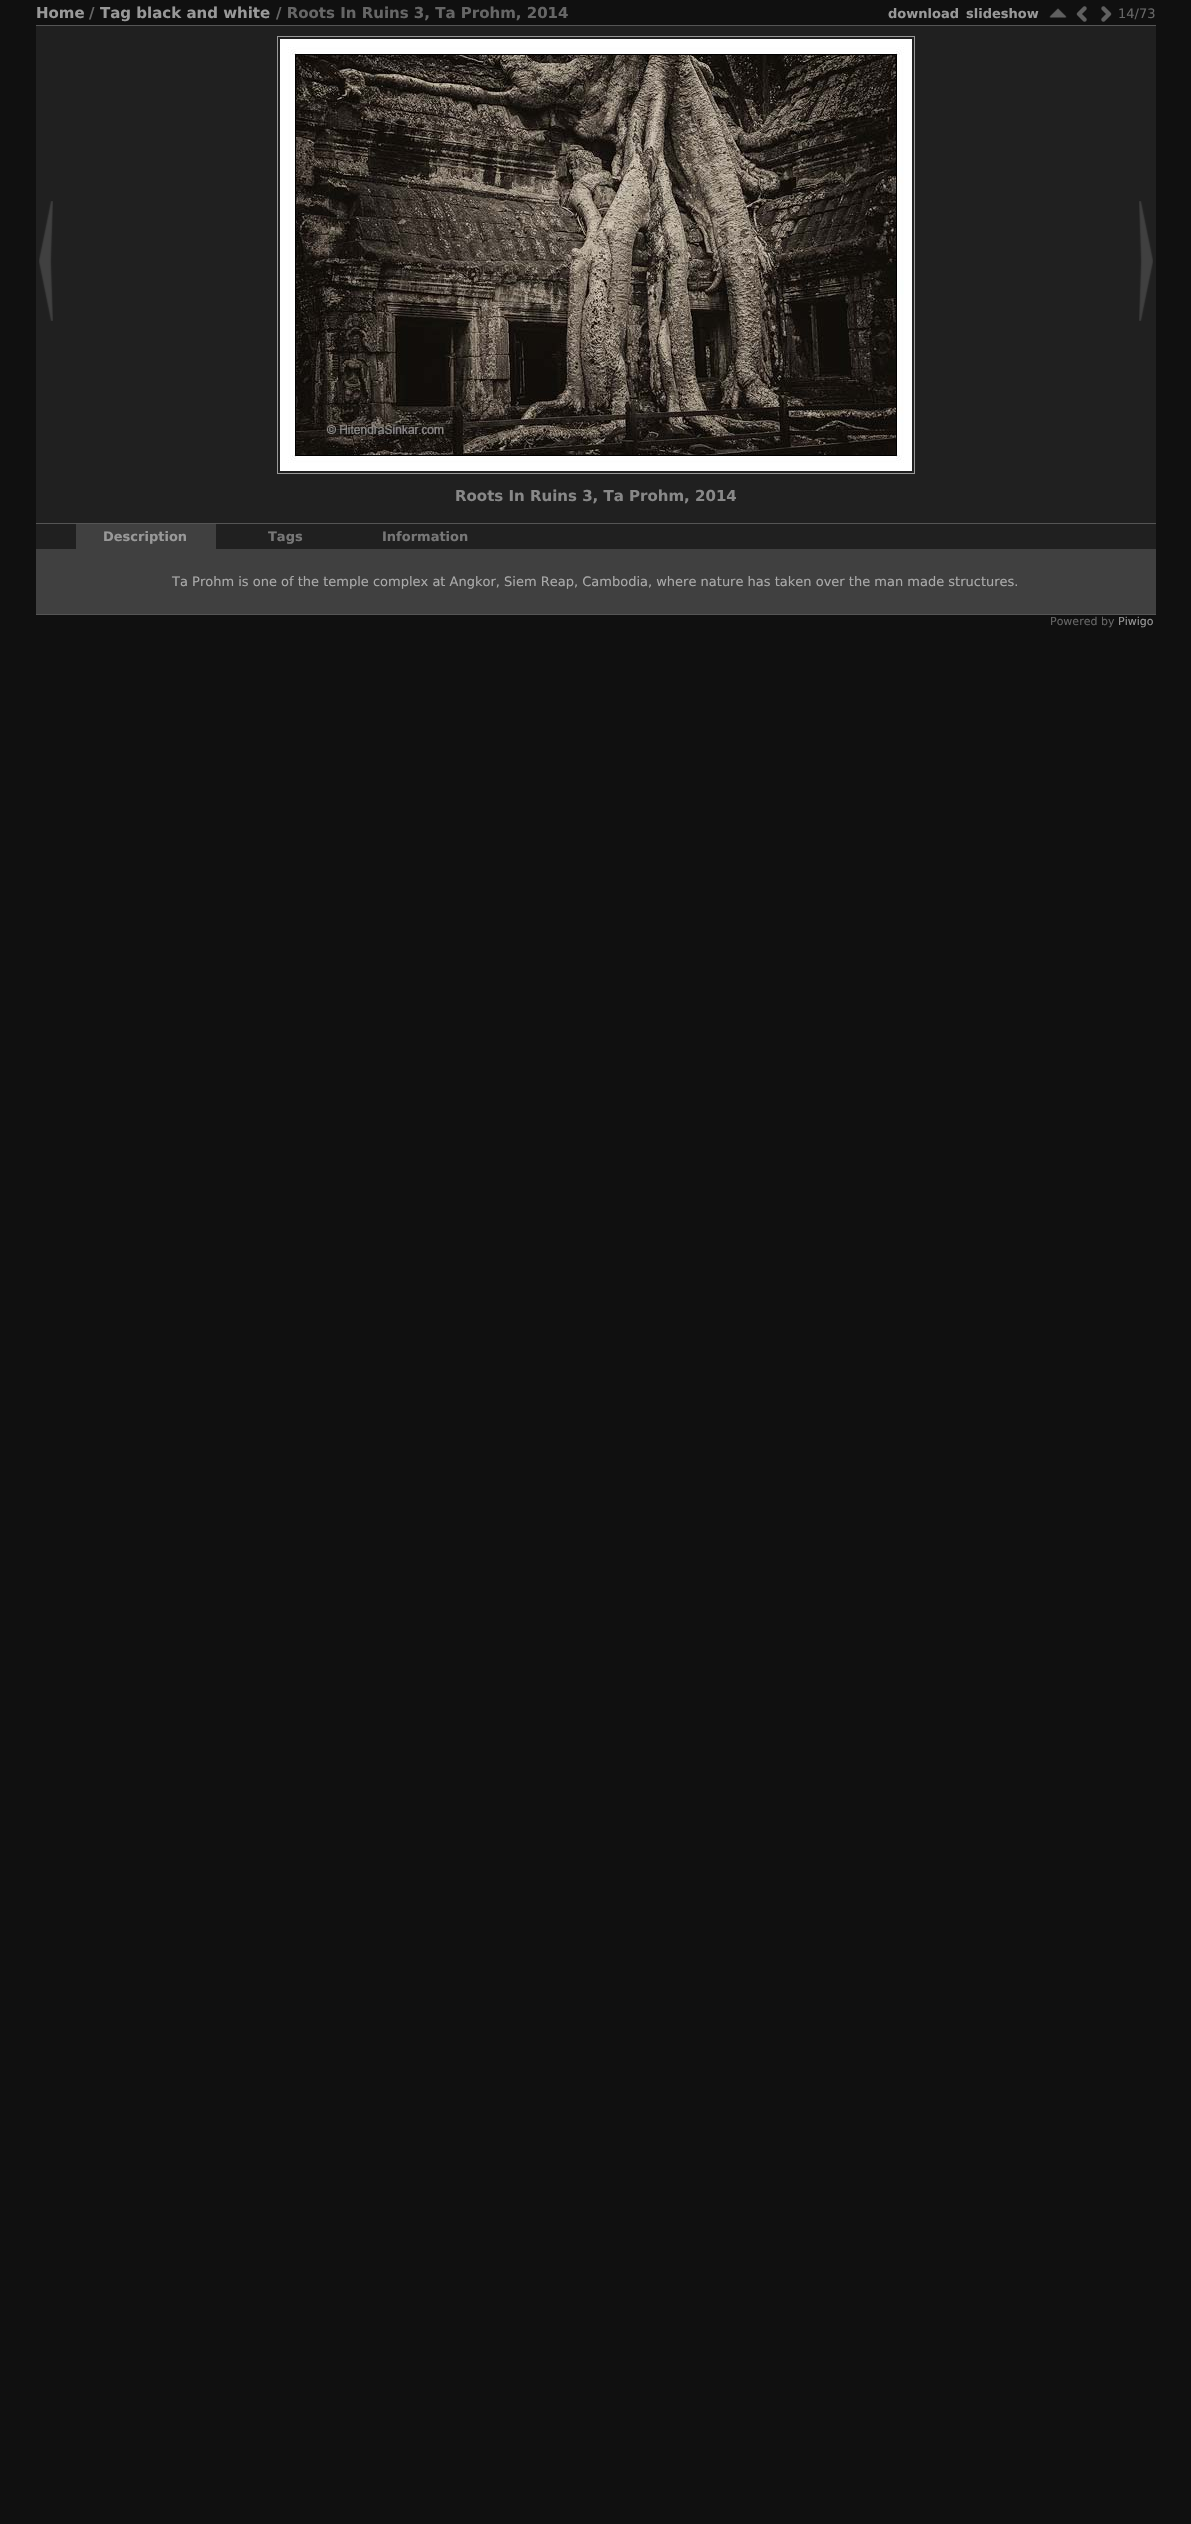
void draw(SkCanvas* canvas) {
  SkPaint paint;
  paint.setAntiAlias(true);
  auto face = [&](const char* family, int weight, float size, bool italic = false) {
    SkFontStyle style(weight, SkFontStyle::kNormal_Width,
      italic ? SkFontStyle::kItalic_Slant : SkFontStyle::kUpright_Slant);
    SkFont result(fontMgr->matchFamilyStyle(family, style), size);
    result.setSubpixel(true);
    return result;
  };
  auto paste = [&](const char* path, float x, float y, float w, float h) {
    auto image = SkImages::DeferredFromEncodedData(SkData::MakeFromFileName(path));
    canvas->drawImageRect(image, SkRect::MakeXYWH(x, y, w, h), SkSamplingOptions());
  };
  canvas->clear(0xff101010);
  paste("img/1.png", 1049, 8, 18, 10);
  paste("img/2.png", 1076, 6, 11, 16);
  paste("img/3.png", 1101, 6, 11, 16);
  {
    const struct { float x, y, w, h; SkColor color; } items[] = {
      {36, 26, 1120, 523, 0xff202020},
      {36, 25, 1120, 1, 0xff555555},
      {36, 614, 1120, 1, 0xff555555},
    };
    for (auto [x, y, w, h, color] : items) {
      paint.setColor(color);
      canvas->drawRect(SkRect::MakeXYWH(x, y, w, h), paint);
    }
  }
  paste("img/4.png", 39, 201, 14, 120);
  paint.setStroke(true);
  paint.setStrokeWidth(1);
  paint.setColor(0xff999999);
  canvas->drawRect(SkRect::MakeXYWH(277.5f, 36.5f, 637, 437), paint);
  paste("img/5.png", 280, 39, 632, 432);
  paste("img/6.png", 1139, 201, 14, 120);
  paint.setStroke(false);
  {
    const struct { float x, y, w, h; SkColor color; } items[] = {
      {36, 523, 1120, 1, 0xff555555},
      {76, 524, 140, 25, 0xff404040},
      {36, 549, 1120, 65, 0xff404040},
    };
    for (auto [x, y, w, h, color] : items) {
      paint.setColor(color);
      canvas->drawRect(SkRect::MakeXYWH(x, y, w, h), paint);
    }
  }
  auto f0 = face("DejaVu Sans", 700, 15);
  paint.setColor(0xff999999);
  canvas->drawString("Home", 36, 18, f0, paint);
  paint.setColor(0xff666666);
  canvas->drawString("/", 89, 18, f0, paint);
  paint.setColor(0xff999999);
  canvas->drawString("Tag black and white", 100, 18, f0, paint);
  paint.setColor(0xff666666);
  canvas->drawString("/ Roots In Ruins 3, Ta Prohm, 2014", 276, 18, f0, paint);
  auto f1 = face("DejaVu Sans", 700, 13);
  paint.setColor(0xff999999);
  canvas->drawString("download", 888, 18, f1, paint);
  canvas->drawString("slideshow", 966, 18, f1, paint);
  auto f2 = face("DejaVu Sans", 400, 13);
  paint.setColor(0xff666666);
  canvas->drawString("14/73", 1118, 18, f2, paint);
  paint.setColor(0xff888888);
  canvas->drawString("Roots In Ruins 3, Ta Prohm, 2014", 455, 501, f0, paint);
  paint.setColor(0xff999999);
  canvas->drawString("Description", 103, 541, f1, paint);
  paint.setColor(0xff777777);
  canvas->drawString("Tags", 268, 541, f1, paint);
  canvas->drawString("Information", 382, 541, f1, paint);
  paint.setColor(0xffaaaaaa);
  canvas->drawString("Ta Prohm is one of the temple complex at Angkor, Siem Reap, Cambodia, where nature has taken over the man made structures.", 172, 586, f2, paint);
  auto f3 = face("DejaVu Sans", 400, 11);
  paint.setColor(0xff666666);
  canvas->drawString("Powered by", 1050, 625, f3, paint);
  paint.setColor(0xff999999);
  canvas->drawString("Piwigo", 1118, 625, f3, paint);
}
